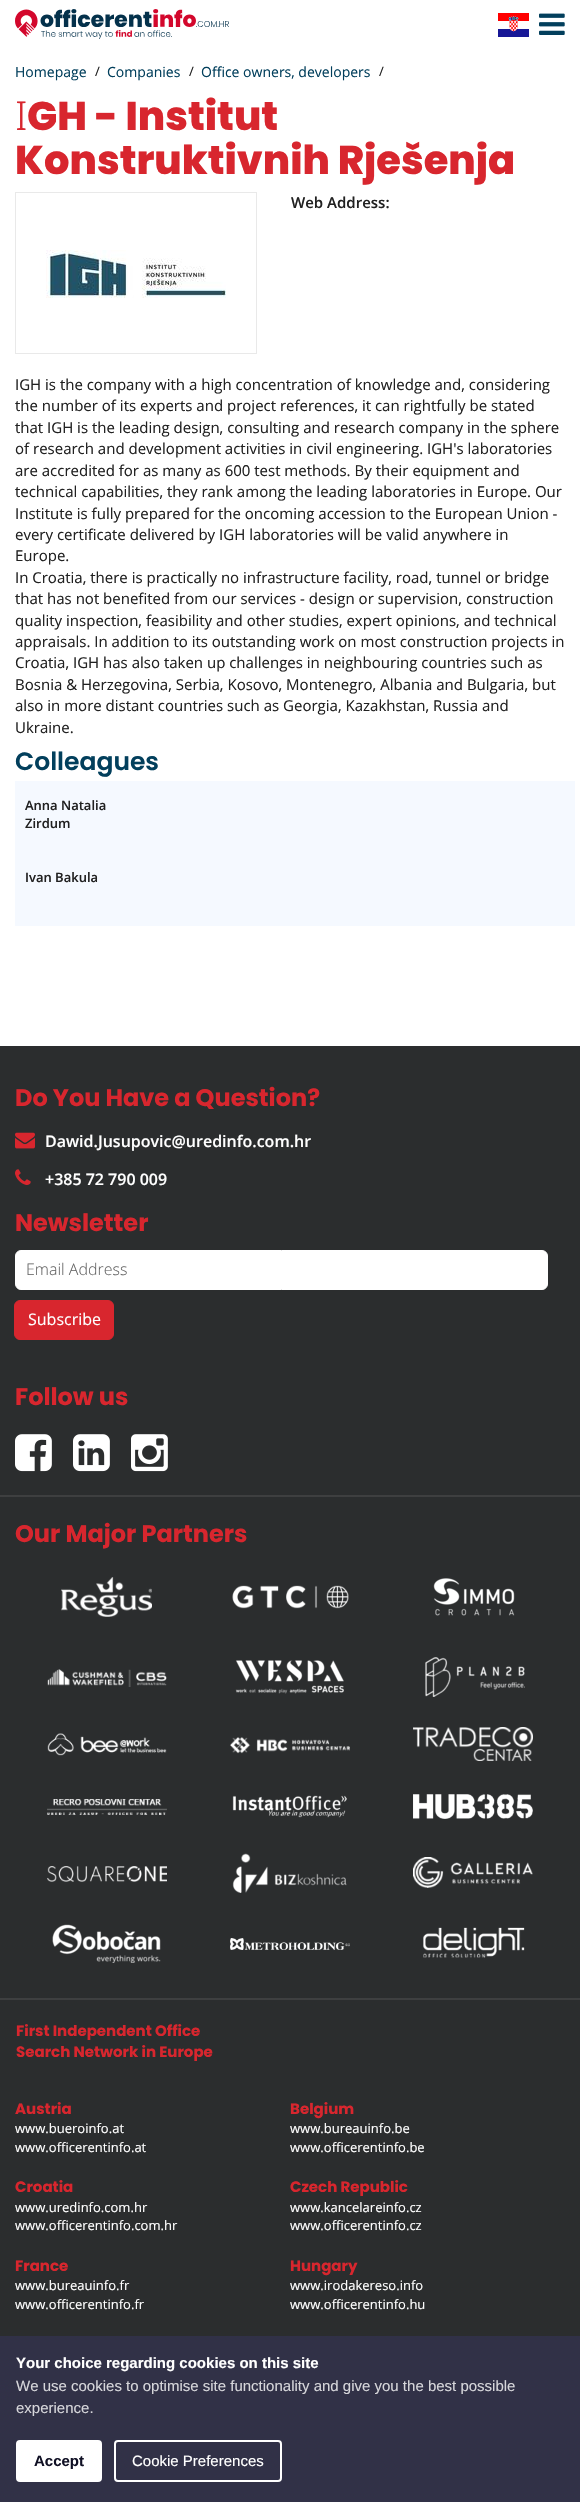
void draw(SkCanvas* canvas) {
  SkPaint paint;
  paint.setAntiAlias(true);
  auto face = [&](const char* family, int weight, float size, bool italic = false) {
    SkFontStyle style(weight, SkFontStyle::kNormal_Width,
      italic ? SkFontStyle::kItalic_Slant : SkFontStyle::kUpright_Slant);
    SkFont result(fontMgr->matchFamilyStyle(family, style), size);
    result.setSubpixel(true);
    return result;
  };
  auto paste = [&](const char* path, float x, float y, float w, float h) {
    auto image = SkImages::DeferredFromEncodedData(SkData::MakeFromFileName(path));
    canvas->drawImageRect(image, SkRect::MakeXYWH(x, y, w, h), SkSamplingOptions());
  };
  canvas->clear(0xffffffff);
  paste("img/1.png", 15, 9, 214, 30);
  paste("img/2.png", 498, 13, 31, 24);
  paste("img/3.png", 539, 13, 26, 22);
  paint.setStroke(true);
  paint.setStrokeWidth(1);
  paint.setColor(0xffe9e9e9);
  canvas->drawRect(SkRect::MakeXYWH(15.5f, 192.5f, 241, 161), paint);
  paste("img/4.png", 46, 250, 180, 48);
  paint.setStroke(false);
  {
    const struct { float x, y, w, h; SkColor color; } items[] = {
      {15, 781, 560, 145, 0xfff5f9ff},
      {0, 1046, 580, 1290, 0xff2b2d2e},
      {0, 1495, 580, 2, 0xff3e3f40},
    };
    for (auto [x, y, w, h, color] : items) {
      paint.setColor(color);
      canvas->drawRect(SkRect::MakeXYWH(x, y, w, h), paint);
    }
  }
  paste("img/5.png", 15, 1132, 20, 17);
  paste("img/6.png", 15, 1169, 16, 16);
  paint.setColor(0xffffffff);
  canvas->drawRoundRect(SkRect::MakeXYWH(15.5f, 1250.5f, 532, 39), 5.5f, 5.5f, paint);
  paint.setStroke(true);
  canvas->drawRoundRect(SkRect::MakeXYWH(15.5f, 1250.5f, 532, 39), 5.5f, 5.5f, paint);
  paint.setStroke(false);
  paint.setColor(0xffd8262e);
  canvas->drawRoundRect(SkRect::MakeXYWH(14.5f, 1300.5f, 99, 39), 5.5f, 5.5f, paint);
  paint.setStroke(true);
  canvas->drawRoundRect(SkRect::MakeXYWH(14.5f, 1300.5f, 99, 39), 5.5f, 5.5f, paint);
  paste("img/7.png", 15, 1434, 37, 38);
  paste("img/8.png", 73, 1434, 37, 38);
  paste("img/9.png", 131, 1434, 37, 38);
  paint.setStroke(false);
  paint.setColor(0xff3e3f40);
  canvas->drawRect(SkRect::MakeXYWH(0, 1998, 580, 2), paint);
  paste("img/10.png", 61, 1577, 91, 40);
  paste("img/11.png", 232, 1585, 117, 24);
  paste("img/12.png", 433, 1578, 82, 38);
  paste("img/13.png", 47, 1669, 120, 18);
  paste("img/14.png", 235, 1660, 109, 34);
  paste("img/15.png", 425, 1657, 100, 40);
  paste("img/16.png", 47, 1733, 120, 23);
  paste("img/17.png", 230, 1737, 120, 17);
  paste("img/18.png", 413, 1727, 120, 34);
  paste("img/19.png", 47, 1799, 120, 16);
  paste("img/20.png", 232, 1795, 115, 23);
  paste("img/21.png", 413, 1794, 120, 25);
  paste("img/22.png", 47, 1866, 120, 16);
  paste("img/23.png", 232, 1853, 115, 40);
  paste("img/24.png", 413, 1857, 120, 31);
  paste("img/25.png", 52, 1924, 109, 39);
  paste("img/26.png", 230, 1938, 120, 12);
  paste("img/27.png", 423, 1927, 102, 31);
  paint.setColor(0xff313147);
  canvas->drawRect(SkRect::MakeXYWH(0, 2336, 580, 166), paint);
  paint.setColor(0xffffffff);
  canvas->drawRoundRect(SkRect::MakeXYWH(17, 2441, 84, 40), 3, 3, paint);
  paint.setStroke(true);
  paint.setStrokeWidth(2);
  canvas->drawRoundRect(SkRect::MakeXYWH(17, 2441, 84, 40), 3, 3, paint);
  canvas->drawRoundRect(SkRect::MakeXYWH(115, 2441, 166, 40), 3, 3, paint);
  auto f0 = face("Open Sans", 400, 14);
  paint.setStroke(false);
  paint.setColor(0xff023f5c);
  canvas->drawString("Homepage", 15, 77, f0, paint);
  auto f1 = face("Open Sans", 400, 13);
  paint.setColor(0xff212121);
  canvas->drawString("/", 95, 76, f1, paint);
  paint.setColor(0xff023f5c);
  canvas->drawString("Companies", 107, 77, f0, paint);
  paint.setColor(0xff212121);
  canvas->drawString("/", 189, 76, f1, paint);
  paint.setColor(0xff023f5c);
  canvas->drawString("Office owners, developers", 201, 77, f0, paint);
  paint.setColor(0xff212121);
  canvas->drawString("/", 379, 76, f1, paint);
  auto f2 = face("Noto Sans", 300, 40);
  paint.setColor(0xffd8262e);
  canvas->drawString("I", 15, 130, f2, paint);
  auto f3 = face("Poppins", 800, 40);
  canvas->drawString("GH - Institut", 27, 130, f3, paint);
  canvas->drawString("Konstruktivnih Rješenja", 15, 174, f3, paint);
  auto f4 = face("Open Sans", 600, 15);
  paint.setColor(0xff212121);
  canvas->drawString("Web Address:", 291, 208, f4, paint);
  auto f5 = face("Open Sans", 400, 15);
  {
    const struct { const char* s; float x, y; } items[] = {
      {"IGH is the company with a high concentration of knowledge and, considering", 15, 390},
      {"the number of its experts and project references, it can rightfully be stated", 15, 411},
      {"that IGH is the leading design, consulting and research company in the sphere", 15, 433},
      {"of research and development activities in civil engineering. IGH's laboratories", 15, 454},
      {"are accredited for as many as 600 test methods. By their equipment and", 15, 476},
      {"technical capabilities, they rank among the leading laboratories in Europe. Our", 15, 497},
      {"Institute is fully prepared for the oncoming accession to the European Union -", 15, 519},
      {"every certificate delivered by IGH laboratories will be valid anywhere in", 15, 540},
      {"Europe.", 15, 561},
      {"In Croatia, there is practically no infrastructure facility, road, tunnel or bridge", 15, 583},
      {"that has not benefited from our services - design or supervision, construction", 15, 604},
      {"quality inspection, feasibility and other studies, expert opinions, and technical", 15, 626},
      {"appraisals. In addition to its outstanding work on most construction projects in", 15, 647},
      {"Croatia, IGH has also taken up challenges in neighbouring countries such as", 15, 668},
      {"Bosnia & Herzegovina, Serbia, Kosovo, Montenegro, Albania and Bulgaria, but", 15, 690},
      {"also in more distant countries such as Georgia, Kazakhstan, Russia and", 15, 711},
      {"Ukraine.", 15, 733},
    };
    for (auto [s, x, y] : items) {
      canvas->drawString(s, x, y, f5, paint);
    }
  }
  auto f6 = face("Poppins", 600, 25);
  paint.setColor(0xff023f5c);
  canvas->drawString("Colleagues", 15, 770, f6, paint);
  auto f7 = face("Open Sans", 600, 13);
  paint.setColor(0xff212121);
  {
    const struct { const char* s; float x, y; } items[] = {
      {"Anna Natalia", 25, 810},
      {"Zirdum", 25, 828},
      {"Ivan Bakula", 25, 882},
    };
    for (auto [s, x, y] : items) {
      canvas->drawString(s, x, y, f7, paint);
    }
  }
  auto f8 = face("Poppins", 700, 24);
  paint.setColor(0xffd8262e);
  canvas->drawString("Do You Have a Question?", 15, 1106, f8, paint);
  auto f9 = face("Open Sans", 600, 16);
  paint.setColor(0xffffffff);
  canvas->drawString("Dawid.Jusupovic@uredinfo.com.hr", 45, 1147, f9, paint);
  canvas->drawString("+385 72 790 009", 45, 1185, f9, paint);
  paint.setColor(0xffd8262e);
  canvas->drawString("Newsletter", 15, 1231, f8, paint);
  auto f10 = face("Open Sans", 300, 16);
  paint.setColor(0xff666666);
  canvas->drawString("Email Address", 26, 1275, f10, paint);
  auto f11 = face("Open Sans", 400, 16);
  paint.setColor(0xffffffff);
  canvas->drawString("Subscribe", 28, 1325, f11, paint);
  paint.setColor(0xffd8262e);
  canvas->drawString("Follow us", 15, 1405, f8, paint);
  canvas->drawString("Our Major Partners", 15, 1542, f8, paint);
  auto f12 = face("Poppins", 700, 15);
  {
    const struct { const char* s; float x, y; } items[] = {
      {"First Independent Office", 16, 2036},
      {"Search Network in Europe", 16, 2057},
      {"Austria", 15, 2114},
    };
    for (auto [s, x, y] : items) {
      canvas->drawString(s, x, y, f12, paint);
    }
  }
  paint.setColor(0xffffffff);
  canvas->drawString("www.bueroinfo.at", 15, 2133, f1, paint);
  canvas->drawString("www.officerentinfo.at", 15, 2152, f1, paint);
  paint.setColor(0xffd8262e);
  canvas->drawString("Belgium", 290, 2114, f12, paint);
  paint.setColor(0xffffffff);
  canvas->drawString("www.bureauinfo.be", 290, 2133, f1, paint);
  canvas->drawString("www.officerentinfo.be", 290, 2152, f1, paint);
  paint.setColor(0xffd8262e);
  canvas->drawString("Croatia", 15, 2192, f12, paint);
  paint.setColor(0xffffffff);
  canvas->drawString("www.uredinfo.com.hr", 15, 2212, f1, paint);
  canvas->drawString("www.officerentinfo.com.hr", 15, 2230, f1, paint);
  paint.setColor(0xffd8262e);
  canvas->drawString("Czech Republic", 290, 2192, f12, paint);
  paint.setColor(0xffffffff);
  canvas->drawString("www.kancelareinfo.cz", 290, 2212, f1, paint);
  canvas->drawString("www.officerentinfo.cz", 290, 2230, f1, paint);
  paint.setColor(0xffd8262e);
  canvas->drawString("France", 15, 2271, f12, paint);
  paint.setColor(0xffffffff);
  canvas->drawString("www.bureauinfo.fr", 15, 2290, f1, paint);
  canvas->drawString("www.officerentinfo.fr", 15, 2309, f1, paint);
  paint.setColor(0xffd8262e);
  canvas->drawString("Hungary", 290, 2271, f12, paint);
  paint.setColor(0xffffffff);
  canvas->drawString("www.irodakereso.info", 290, 2290, f1, paint);
  canvas->drawString("www.officerentinfo.hu", 290, 2309, f1, paint);
  auto f13 = face("Liberation Sans", 700, 15);
  canvas->drawString("Your choice regarding cookies on this site", 16, 2368, f13, paint);
  auto f14 = face("Liberation Sans", 400, 15);
  paint.setColor(0xffd6d6da);
  canvas->drawString("We use cookies to optimise site functionality and give you the best possible", 16, 2391, f14, paint);
  canvas->drawString("experience.", 16, 2413, f14, paint);
  paint.setColor(0xff111125);
  canvas->drawString("Accept", 34, 2466, f13, paint);
  paint.setColor(0xffffffff);
  canvas->drawString("Cookie Preferences", 132, 2466, f14, paint);
}
